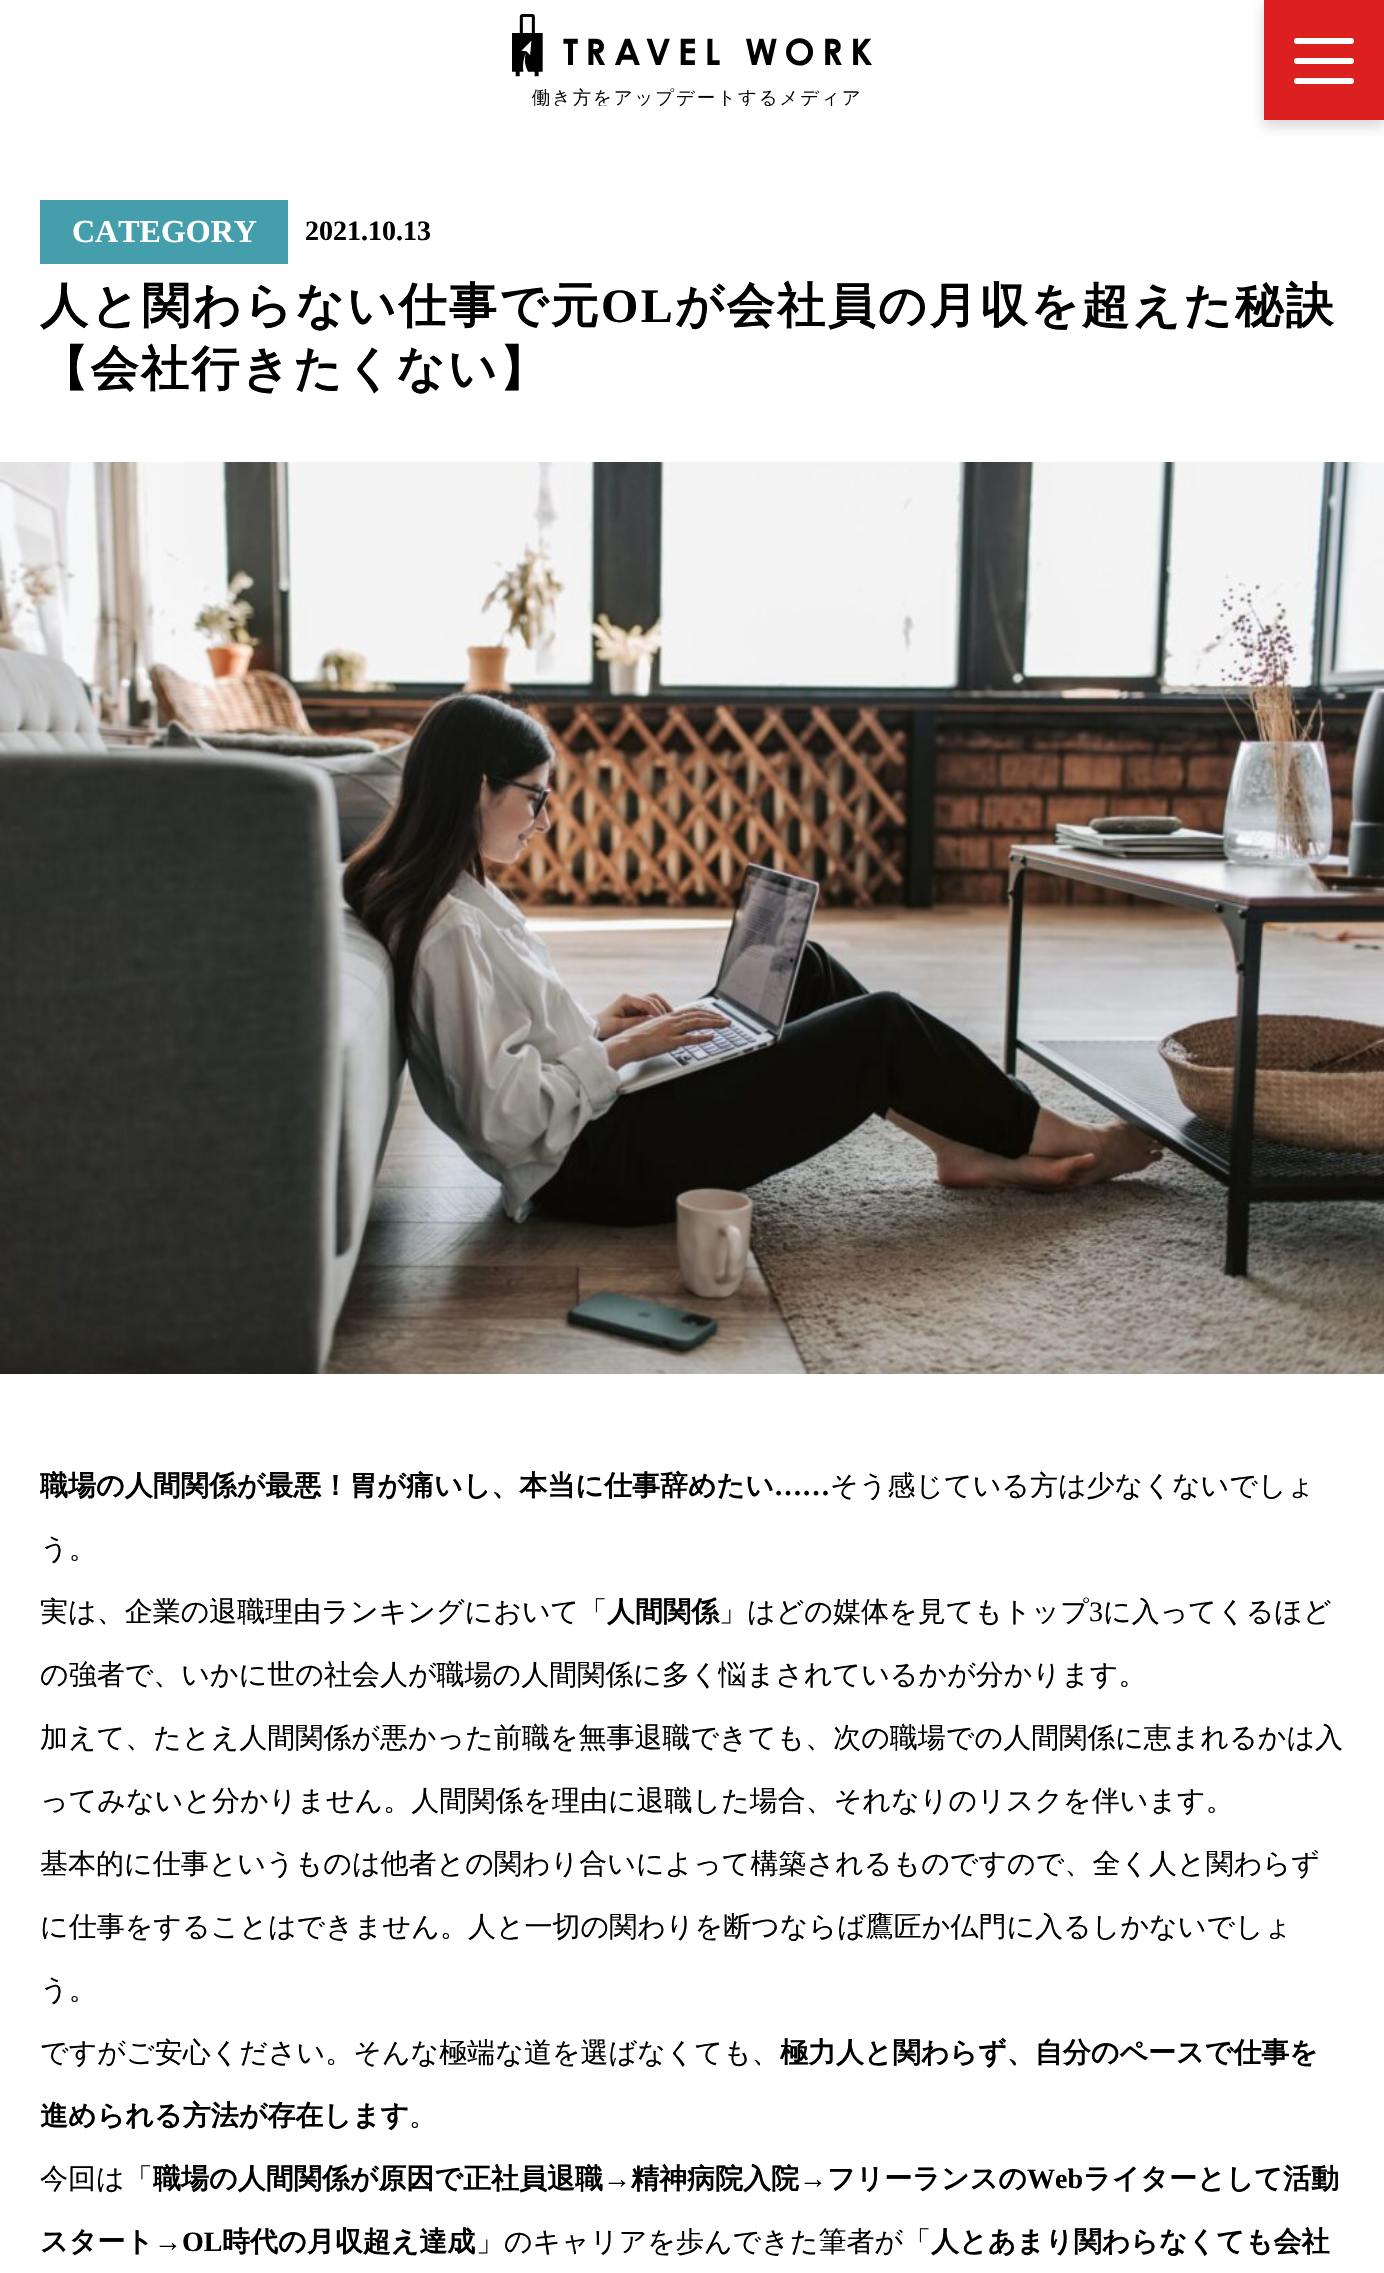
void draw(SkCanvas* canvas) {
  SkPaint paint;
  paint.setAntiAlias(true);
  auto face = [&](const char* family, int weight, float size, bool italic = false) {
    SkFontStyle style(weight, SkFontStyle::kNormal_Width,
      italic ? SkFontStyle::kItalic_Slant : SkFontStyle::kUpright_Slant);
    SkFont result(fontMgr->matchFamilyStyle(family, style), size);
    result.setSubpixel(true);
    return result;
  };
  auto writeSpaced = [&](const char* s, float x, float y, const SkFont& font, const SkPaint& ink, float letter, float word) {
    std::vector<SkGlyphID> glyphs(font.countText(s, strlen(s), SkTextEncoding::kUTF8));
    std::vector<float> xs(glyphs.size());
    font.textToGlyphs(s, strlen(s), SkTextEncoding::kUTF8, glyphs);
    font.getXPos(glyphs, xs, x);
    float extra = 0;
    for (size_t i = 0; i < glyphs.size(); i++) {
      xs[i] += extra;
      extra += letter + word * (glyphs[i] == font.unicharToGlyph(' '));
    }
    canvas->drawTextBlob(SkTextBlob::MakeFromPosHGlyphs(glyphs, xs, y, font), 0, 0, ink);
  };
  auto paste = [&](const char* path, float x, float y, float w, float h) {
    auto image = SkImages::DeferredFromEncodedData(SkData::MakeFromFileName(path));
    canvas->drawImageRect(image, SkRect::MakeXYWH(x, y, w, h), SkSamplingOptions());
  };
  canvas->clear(0xffffffff);
  paste("img/1.png", 512, 14, 360, 92);
  paint.setColor(0x29000000);
  paint.setMaskFilter(SkMaskFilter::MakeBlur(kNormal_SkBlurStyle, 6));
  canvas->drawRect(SkRect::MakeXYWH(1264, 6, 120, 120), paint);
  paint.setMaskFilter(nullptr);
  paint.setColor(0xffdc2020);
  canvas->drawRect(SkRect::MakeXYWH(1264, 0, 120, 120), paint);
  paint.setColor(0xffffffff);
  canvas->drawRoundRect(SkRect::MakeXYWH(1294, 58, 60, 6), 3, 3, paint);
  canvas->drawRoundRect(SkRect::MakeXYWH(1294, 38, 60, 6), 3, 3, paint);
  canvas->drawRoundRect(SkRect::MakeXYWH(1294, 78, 60, 6), 3, 3, paint);
  paint.setColor(0xff459eab);
  canvas->drawRect(SkRect::MakeXYWH(40, 200, 248, 64), paint);
  paste("img/2.png", 0, 462, 1384, 912);
  auto f0 = face("Liberation Serif", 700, 32);
  paint.setColor(0xffffffff);
  canvas->drawString("CATEGORY", 72, 242, f0, paint);
  auto f1 = face("Liberation Serif", 700, 28);
  paint.setColor(0xff000000);
  canvas->drawString("2021.10.13", 305, 240, f1, paint);
  auto f2 = face("WenQuanYi Zen Hei", 700, 48);
  writeSpaced("人と関わらない仕事で元", 40, 322, f2, paint, 2.4f, 0);
  auto f3 = face("Liberation Serif", 700, 48);
  writeSpaced("OL", 601, 322, f3, paint, 2.4f, 0);
  writeSpaced("が会社員の月収を超えた秘訣", 675, 322, f2, paint, 2.4f, 0);
  writeSpaced("【会社行きたくない】", 40, 385, f2, paint, 2.4f, 0);
  auto f4 = face("WenQuanYi Zen Hei", 700, 28);
  canvas->drawString("職場の人間関係が最悪！胃が痛いし、本当に仕事辞めたい", 40, 1495, f4, paint);
  canvas->drawString("……", 774, 1495, f1, paint);
  auto f5 = face("WenQuanYi Zen Hei", 500, 28);
  {
    const struct { const char* s; float x, y; } items[] = {
      {"そう感じている方は少なくないでしょ", 830, 1495},
      {"う。", 40, 1558},
      {"実は、企業の退職理由ランキングにおいて「", 40, 1621},
    };
    for (auto [s, x, y] : items) {
      canvas->drawString(s, x, y, f5, paint);
    }
  }
  canvas->drawString("人間関係", 607, 1621, f4, paint);
  canvas->drawString("」はどの媒体を見てもトップ", 719, 1621, f5, paint);
  auto f6 = face("Liberation Serif", 400, 28);
  canvas->drawString("3", 1089, 1621, f6, paint);
  {
    const struct { const char* s; float x, y; } items[] = {
      {"に入ってくるほど", 1103, 1621},
      {"の強者で、いかに世の社会人が職場の人間関係に多く悩まされているかが分かります。", 40, 1684},
      {"加えて、たとえ人間関係が悪かった前職を無事退職できても、次の職場での人間関係に恵まれるかは入", 40, 1747},
      {"ってみないと分かりません。人間関係を理由に退職した場合、それなりのリスクを伴います。", 40, 1810},
      {"基本的に仕事というものは他者との関わり合いによって構築されるものですので、全く人と関わらず", 40, 1873},
      {"に仕事をすることはできません。人と一切の関わりを断つならば鷹匠か仏門に入るしかないでしょ", 40, 1936},
      {"う。", 40, 1999},
      {"ですがご安心ください。そんな極端な道を選ばなくても、", 40, 2062},
    };
    for (auto [s, x, y] : items) {
      canvas->drawString(s, x, y, f5, paint);
    }
  }
  canvas->drawString("極力人と関わらず、自分のペースで仕事を", 780, 2062, f4, paint);
  canvas->drawString("進められる方法が存在します", 40, 2125, f4, paint);
  canvas->drawString("。", 409, 2125, f5, paint);
  canvas->drawString("今回は「", 40, 2188, f5, paint);
  canvas->drawString("職場の人間関係が原因で正社員退職", 153, 2188, f4, paint);
  canvas->drawString("→", 603, 2188, f1, paint);
  canvas->drawString("精神病院入院", 631, 2188, f4, paint);
  canvas->drawString("→", 799, 2188, f1, paint);
  canvas->drawString("フリーランスの", 827, 2188, f4, paint);
  canvas->drawString("Web", 1027, 2188, f1, paint);
  canvas->drawString("ライターとして活動", 1083, 2188, f4, paint);
  canvas->drawString("スタート", 40, 2251, f4, paint);
  canvas->drawString("→OL", 154, 2251, f1, paint);
  canvas->drawString("時代の月収超え達成", 222, 2251, f4, paint);
  canvas->drawString("」のキャリアを歩んできた筆者が「", 476, 2251, f5, paint);
  canvas->drawString("人とあまり関わらなくても会社", 931, 2251, f4, paint);
}
